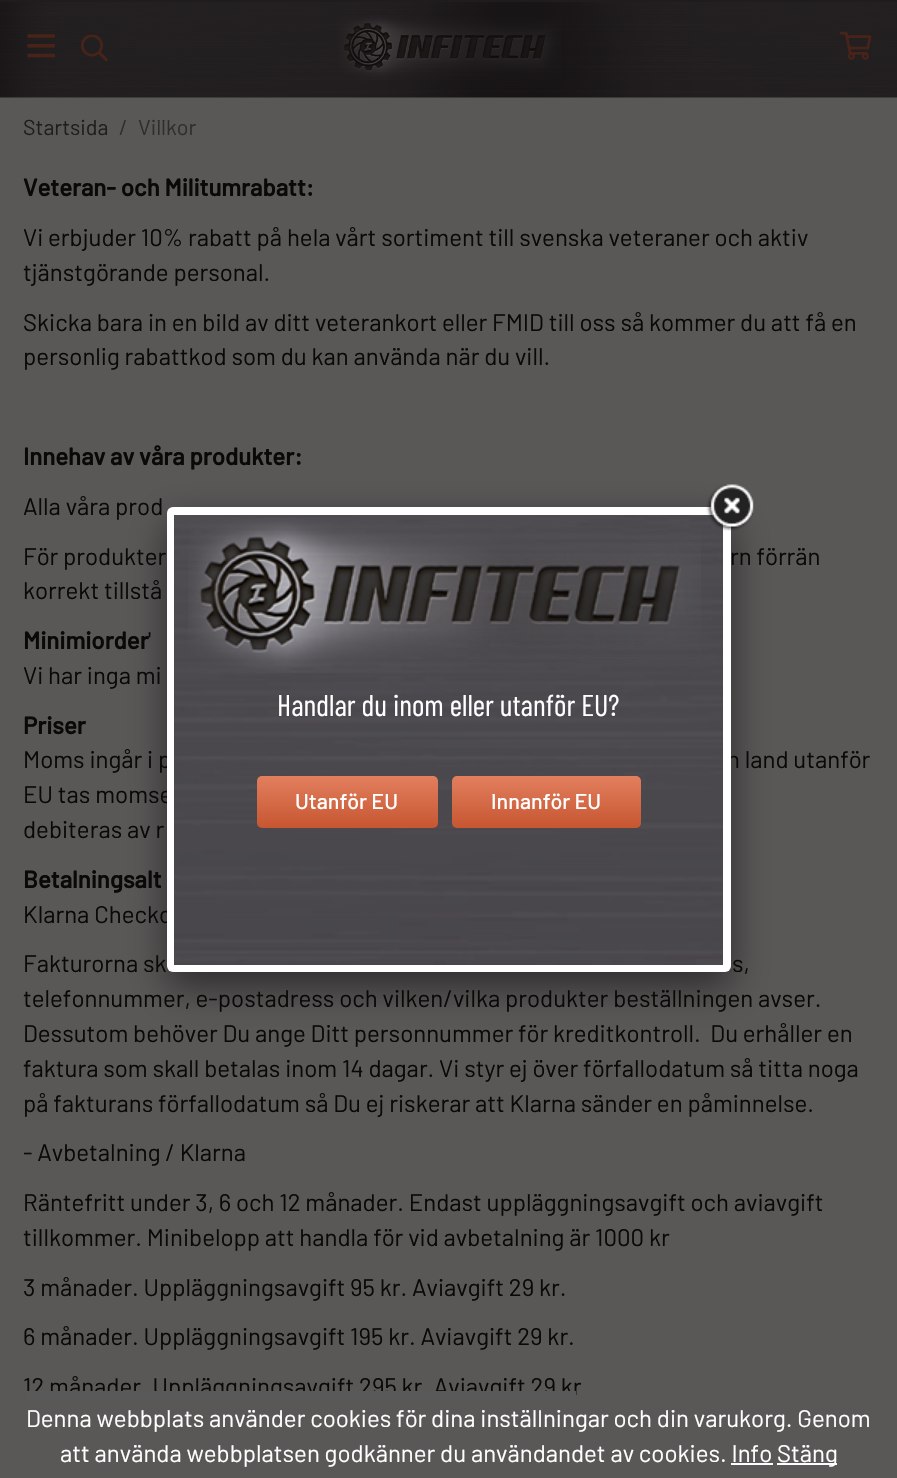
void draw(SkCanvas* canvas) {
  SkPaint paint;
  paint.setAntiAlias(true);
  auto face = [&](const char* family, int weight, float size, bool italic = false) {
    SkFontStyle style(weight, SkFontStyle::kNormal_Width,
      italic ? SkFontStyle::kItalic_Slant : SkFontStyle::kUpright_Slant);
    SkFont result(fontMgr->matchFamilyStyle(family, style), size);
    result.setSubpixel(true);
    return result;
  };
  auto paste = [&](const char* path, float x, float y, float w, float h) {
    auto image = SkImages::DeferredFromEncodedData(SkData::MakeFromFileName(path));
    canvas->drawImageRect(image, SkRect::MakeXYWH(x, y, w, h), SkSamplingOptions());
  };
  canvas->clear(0xff5a5757);
  paste("img/1.png", 0, 2, 897, 96);
  paint.setColor(0xff1f1c1c);
  canvas->drawRect(SkRect::MakeXYWH(0, 0, 897, 2), paint);
  paste("img/2.png", 27, 34, 28, 24);
  paste("img/3.png", 81, 34, 27, 28);
  paste("img/4.png", 338, 15, 223, 65);
  paste("img/5.png", 840, 31, 32, 29);
  paint.setColor(0x80000000);
  paint.setMaskFilter(SkMaskFilter::MakeBlur(kNormal_SkBlurStyle, 19));
  canvas->drawRoundRect(SkRect::MakeXYWH(167, 522, 564, 465), 6, 6, paint);
  paint.setMaskFilter(nullptr);
  paint.setColor(0xffffffff);
  canvas->drawRect(SkRect::MakeXYWH(777, 1463, 60, 2), paint);
  canvas->drawRect(SkRect::MakeXYWH(731, 1463, 42, 2), paint);
  auto f0 = face("Barlow", 400, 21.5f);
  paint.setColor(0xff201d1d);
  canvas->drawString("Startsida", 23, 135, f0, paint);
  paint.setColor(0xff302d2d);
  canvas->drawString("/", 119, 135, f0, paint);
  canvas->drawString("Villkor", 138, 135, f0, paint);
  auto f1 = face("Barlow", 700, 24);
  paint.setColor(0xff0b0808);
  canvas->drawString("Veteran- och Militumrabatt:", 23, 196, f1, paint);
  auto f2 = face("Barlow", 400, 24);
  {
    const struct { const char* s; float x, y; } items[] = {
      {"Vi erbjuder 10% rabatt på hela vårt sortiment till svenska veteraner och aktiv", 23, 246},
      {"tjänstgörande personal.", 23, 281},
      {"Skicka bara in en bild av ditt veterankort eller FMID till oss så kommer du att få en", 23, 331},
      {"personlig rabattkod som du kan använda när du vill.", 23, 365},
    };
    for (auto [s, x, y] : items) {
      canvas->drawString(s, x, y, f2, paint);
    }
  }
  canvas->drawString("Innehav av våra produkter:", 23, 465, f1, paint);
  {
    const struct { const char* s; float x, y; } items[] = {
      {"Alla våra prod", 23, 515},
      {"För produkter", 23, 565},
      {"rn förrän", 730, 565},
      {"korrekt tillstå", 23, 599},
    };
    for (auto [s, x, y] : items) {
      canvas->drawString(s, x, y, f2, paint);
    }
  }
  canvas->drawString("Minimiorder", 23, 649, f1, paint);
  canvas->drawString("'", 148, 649, f2, paint);
  canvas->drawString("Vi har inga mi", 23, 684, f2, paint);
  canvas->drawString("Priser", 23, 734, f1, paint);
  {
    const struct { const char* s; float x, y; } items[] = {
      {"Moms ingår i p", 23, 768},
      {"n land utanför", 727, 768},
      {"EU tas momse", 23, 803},
      {"debiteras av r", 23, 838},
    };
    for (auto [s, x, y] : items) {
      canvas->drawString(s, x, y, f2, paint);
    }
  }
  canvas->drawString("Betalningsalt", 23, 888, f1, paint);
  {
    const struct { const char* s; float x, y; } items[] = {
      {"Klarna Checko", 23, 923},
      {"Fakturorna sk", 23, 972},
      {"s,", 732, 972},
      {"telefonnummer, e-postadress och vilken/vilka produkter beställningen avser.", 23, 1007},
      {"Dessutom behöver Du ange Ditt personnummer för kreditkontroll.  Du erhåller en", 23, 1042},
      {"faktura som skall betalas inom 14 dagar. Vi styr ej över förfallodatum så titta noga", 23, 1077},
      {"på fakturans förfallodatum så Du ej riskerar att Klarna sänder en påminnelse.", 23, 1112},
      {"- Avbetalning / Klarna", 23, 1161},
      {"Räntefritt under 3, 6 och 12 månader. Endast uppläggningsavgift och aviavgift", 23, 1211},
      {"tillkommer. Minibelopp att handla för vid avbetalning är 1000 kr", 23, 1246},
      {"3 månader. Uppläggningsavgift 95 kr. Aviavgift 29 kr.", 23, 1296},
      {"6 månader. Uppläggningsavgift 195 kr. Aviavgift 29 kr.", 23, 1345},
      {"12 månader. Uppläggningsavgift 295 kr. Aviavgift 29 kr", 23, 1395},
    };
    for (auto [s, x, y] : items) {
      canvas->drawString(s, x, y, f2, paint);
    }
  }
  paint.setColor(0xffffffff);
  canvas->drawRoundRect(SkRect::MakeXYWH(167, 507, 564, 465), 6, 6, paint);
  paste("img/7.png", 174, 515, 549, 450);
  paste("img/6.png", 706, 484, 48, 47);
  paste("img/8.png", 188, 518, 513, 155);
  auto f3 = face("Barlow Condensed", 400, 30);
  canvas->drawString("Handlar du inom eller utanför EU?", 277, 716, f3, paint);
  {
    const SkColor colors[] = {0xffe27f5e, 0xffc75631};
    const float stops[] = {0, 1};
    const SkPoint ends[] = {{347, 776}, {347, 828}};
    paint.setShader(SkGradientShader::MakeLinear(ends, colors, stops, 2, SkTileMode::kClamp));
    paint.setAlpha(255);
  }
  canvas->drawRoundRect(SkRect::MakeXYWH(257, 776, 181, 52), 5, 5, paint);
  auto f4 = face("Barlow", 500, 21.5f);
  paint.setShader(nullptr);
  paint.setColor(0xffffffff);
  canvas->drawString("Utanför EU", 295, 809, f4, paint);
  {
    const SkColor colors[] = {0xffe27f5e, 0xffc75631};
    const float stops[] = {0, 1};
    const SkPoint ends[] = {{546, 776}, {546, 828}};
    paint.setShader(SkGradientShader::MakeLinear(ends, colors, stops, 2, SkTileMode::kClamp));
    paint.setAlpha(255);
  }
  canvas->drawRoundRect(SkRect::MakeXYWH(452, 776, 189, 52), 5, 5, paint);
  paint.setShader(nullptr);
  paint.setColor(0xffffffff);
  canvas->drawString("Innanför EU", 491, 809, f4, paint);
  paint.setColor(0xff595959);
  canvas->drawRect(SkRect::MakeXYWH(26, 1391, 550, 9), paint);
  paint.setColor(0xffffffff);
  {
    const struct { const char* s; float x, y; } items[] = {
      {"Denna webbplats använder cookies för dina inställningar och din varukorg. Genom", 26, 1427},
      {"att använda webbplatsen godkänner du användandet av cookies. Info", 60, 1462},
      {"Stäng", 777, 1462},
    };
    for (auto [s, x, y] : items) {
      canvas->drawString(s, x, y, f2, paint);
    }
  }
}
